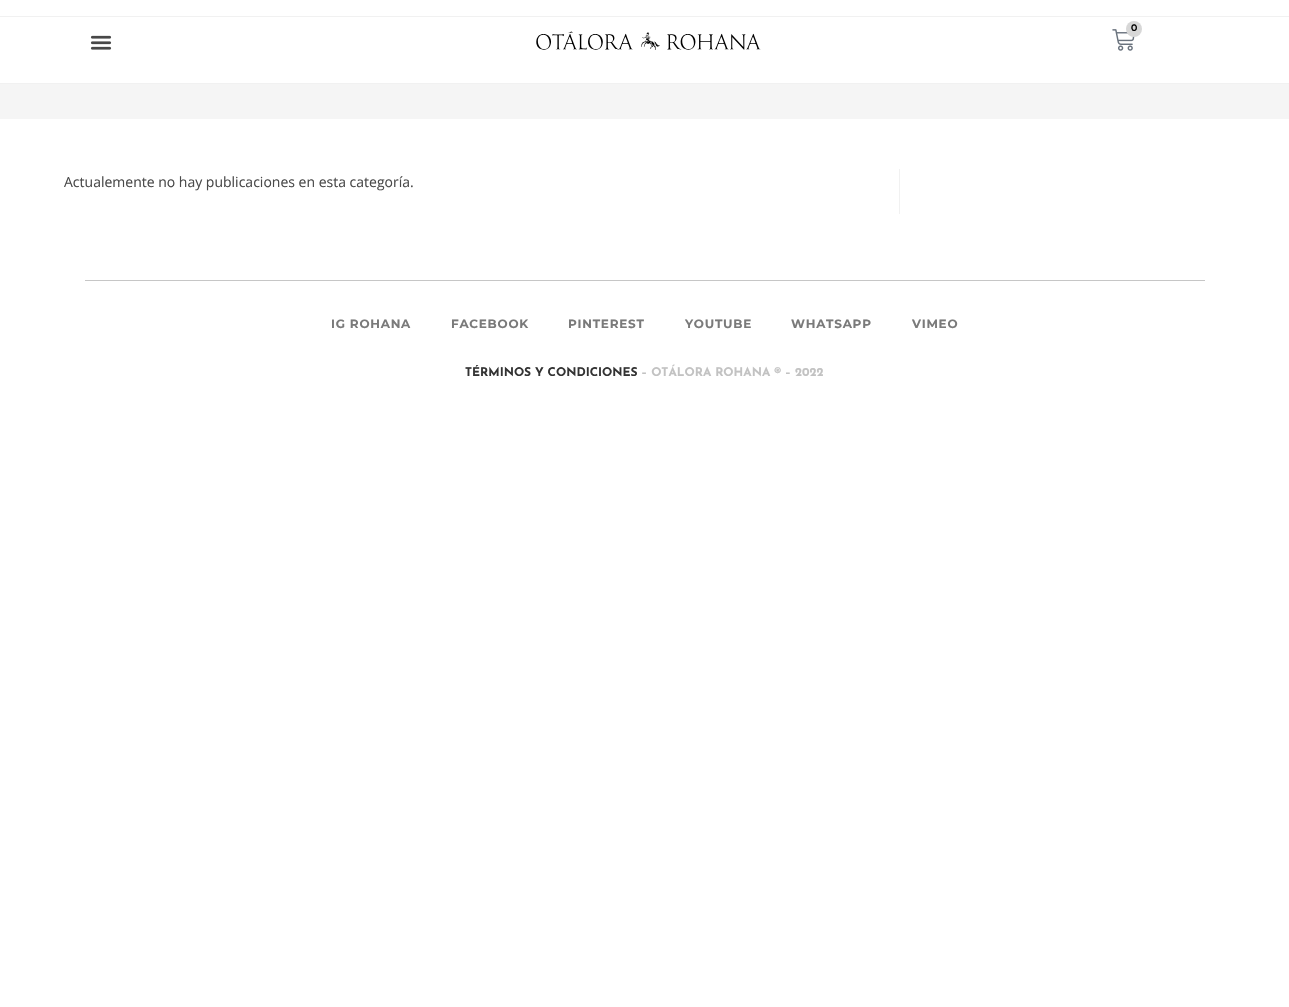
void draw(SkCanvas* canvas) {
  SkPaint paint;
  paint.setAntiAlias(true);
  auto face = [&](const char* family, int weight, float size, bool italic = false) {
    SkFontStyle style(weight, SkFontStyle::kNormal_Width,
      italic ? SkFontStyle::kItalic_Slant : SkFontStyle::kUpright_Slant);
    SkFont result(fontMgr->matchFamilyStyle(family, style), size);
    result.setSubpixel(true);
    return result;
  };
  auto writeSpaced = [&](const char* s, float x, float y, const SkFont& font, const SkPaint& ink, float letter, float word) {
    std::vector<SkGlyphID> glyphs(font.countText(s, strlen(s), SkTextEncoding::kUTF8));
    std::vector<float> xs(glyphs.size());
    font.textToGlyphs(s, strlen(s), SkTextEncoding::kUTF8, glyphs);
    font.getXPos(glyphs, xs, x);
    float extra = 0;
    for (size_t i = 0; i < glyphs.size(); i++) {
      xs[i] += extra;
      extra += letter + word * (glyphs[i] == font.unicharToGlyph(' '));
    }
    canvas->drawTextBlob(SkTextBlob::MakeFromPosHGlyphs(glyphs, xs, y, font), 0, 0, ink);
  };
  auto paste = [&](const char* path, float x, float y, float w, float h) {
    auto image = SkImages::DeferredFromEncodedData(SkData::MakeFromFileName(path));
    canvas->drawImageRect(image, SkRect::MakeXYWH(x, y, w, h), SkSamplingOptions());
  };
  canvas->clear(0xffffffff);
  paint.setColor(0xfff1f1f1);
  canvas->drawRect(SkRect::MakeXYWH(0, 16, 1289, 1), paint);
  canvas->drawRect(SkRect::MakeXYWH(0, 83, 1289, 1), paint);
  paste("img/1.png", 1112, 29, 23, 22);
  paint.setColor(0xffd7d7d7);
  canvas->drawCircle(1134, 29, 8, paint);
  paste("img/2.png", 90, 35, 22, 15);
  paste("img/3.png", 536, 31, 225, 19);
  {
    const struct { float x, y, w, h; SkColor color; } items[] = {
      {0, 84, 1289, 35, 0xfff5f5f5},
      {899, 169, 1, 45, 0xfff1f1f1},
      {85, 280, 1120, 1, 0xffc6c6c6},
    };
    for (auto [x, y, w, h, color] : items) {
      paint.setColor(color);
      canvas->drawRect(SkRect::MakeXYWH(x, y, w, h), paint);
    }
  }
  auto f0 = face("Josefin Sans", 600, 10);
  paint.setColor(0xff000000);
  canvas->drawString("0", 1131, 31, f0, paint);
  auto f1 = face("Open Sans", 400, 14);
  paint.setColor(0xff4a4a4a);
  canvas->drawString("Actualemente no hay publicaciones en esta categoría.", 64, 187, f1, paint);
  auto f2 = face("Montserrat", 700, 12);
  paint.setColor(0xff7a7a7a);
  {
    const struct { const char* s; float x, y; } items[] = {
      {"IG ROHANA", 331, 328},
      {"FACEBOOK", 451, 328},
      {"PINTEREST", 568, 328},
      {"YOUTUBE", 685, 328},
      {"WHATSAPP", 791, 328},
      {"VIMEO", 912, 328},
    };
    for (auto [s, x, y] : items) {
      writeSpaced(s, x, y, f2, paint, 0.75f, 0);
    }
  }
  auto f3 = face("Josefin Sans", 700, 12);
  paint.setColor(0xff333333);
  canvas->drawString("TÉRMINOS Y CONDICIONES", 465, 376, f3, paint);
  paint.setColor(0xffc2c2c2);
  canvas->drawString("– OTÁLORA ROHANA ® – 2022", 641, 376, f3, paint);
}
